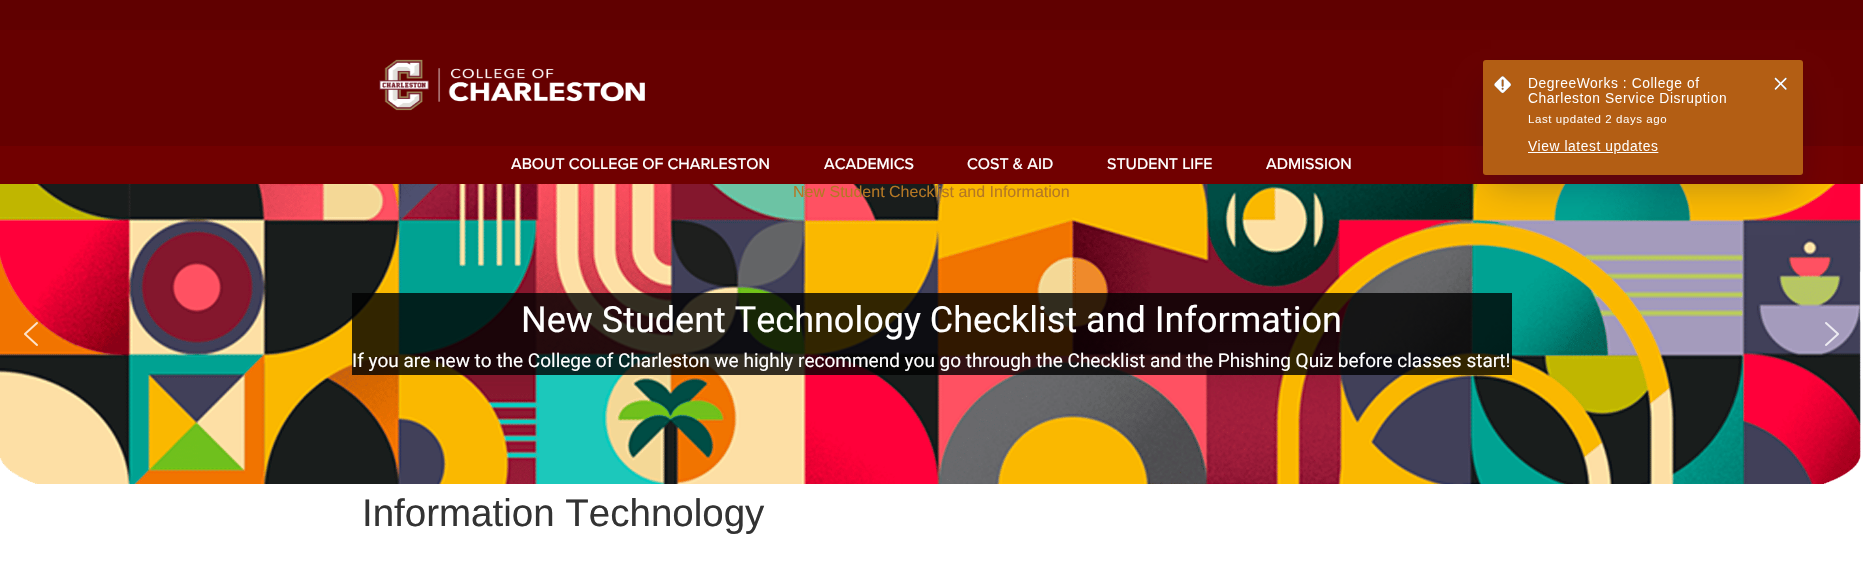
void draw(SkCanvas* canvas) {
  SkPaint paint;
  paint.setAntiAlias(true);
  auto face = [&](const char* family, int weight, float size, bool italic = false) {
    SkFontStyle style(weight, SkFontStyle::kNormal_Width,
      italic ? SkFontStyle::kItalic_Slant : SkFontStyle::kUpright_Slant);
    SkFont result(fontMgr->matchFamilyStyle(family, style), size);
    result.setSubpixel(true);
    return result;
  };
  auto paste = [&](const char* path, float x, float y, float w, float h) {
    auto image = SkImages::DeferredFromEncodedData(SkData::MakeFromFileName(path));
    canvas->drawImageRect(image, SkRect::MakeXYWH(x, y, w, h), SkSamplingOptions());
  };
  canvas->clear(0xffffffff);
  paint.setColor(0xff660000);
  canvas->drawRect(SkRect::MakeXYWH(0, 30, 1863, 116), paint);
  paint.setColor(0xff710000);
  canvas->drawRect(SkRect::MakeXYWH(0, 146, 1863, 38), paint);
  paste("img/4.png", 0, 184, 1861, 300);
  paint.setColor(0x40091442);
  paint.setMaskFilter(SkMaskFilter::MakeBlur(kNormal_SkBlurStyle, 16));
  canvas->drawRect(SkRect::MakeXYWH(1491, 88, 304, 99), paint);
  paint.setMaskFilter(nullptr);
  paste("img/1.png", 1483, 60, 320, 115);
  paint.setColor(0xff600000);
  canvas->drawRect(SkRect::MakeXYWH(0, 0, 1863, 30), paint);
  paste("img/2.png", 379, 59, 266, 52);
  paste("img/3.png", 24, 322, 14, 24);
  paint.setColor(0xcc000000);
  canvas->drawRect(SkRect::MakeXYWH(352, 293, 1160, 54), paint);
  canvas->drawRect(SkRect::MakeXYWH(352, 347, 1160, 28), paint);
  paste("img/5.png", 1825, 322, 14, 24);
  auto f0 = face("Proxima Nova", 500, 16);
  paint.setColor(0xffffffff);
  {
    const struct { const char* s; float x, y; } items[] = {
      {"ABOUT COLLEGE OF CHARLESTON", 511, 169},
      {"ACADEMICS", 824, 169},
      {"COST & AID", 967, 169},
      {"STUDENT LIFE", 1107, 169},
      {"ADMISSION", 1266, 169},
    };
    for (auto [s, x, y] : items) {
      canvas->drawString(s, x, y, f0, paint);
    }
  }
  auto f1 = face("Liberation Sans", 400, 16);
  paint.setColor(0xffb47724);
  canvas->drawString("New Student Checklist and Information", 793, 197, f1, paint);
  auto f2 = face("Roboto", 400, 36);
  paint.setColor(0xffffffff);
  canvas->drawString("New Student Technology Checklist and Information", 521, 332, f2, paint);
  auto f3 = face("Roboto", 400, 19);
  canvas->drawString("If you are new to the College of Charleston we highly recommend you go through the Checklist and the Phishing Quiz before classes start!", 352, 367, f3, paint);
  auto f4 = face("Liberation Sans", 400, 38.5f);
  paint.setColor(0xff333333);
  canvas->drawString("Information Technology", 362, 526, f4, paint);
}
